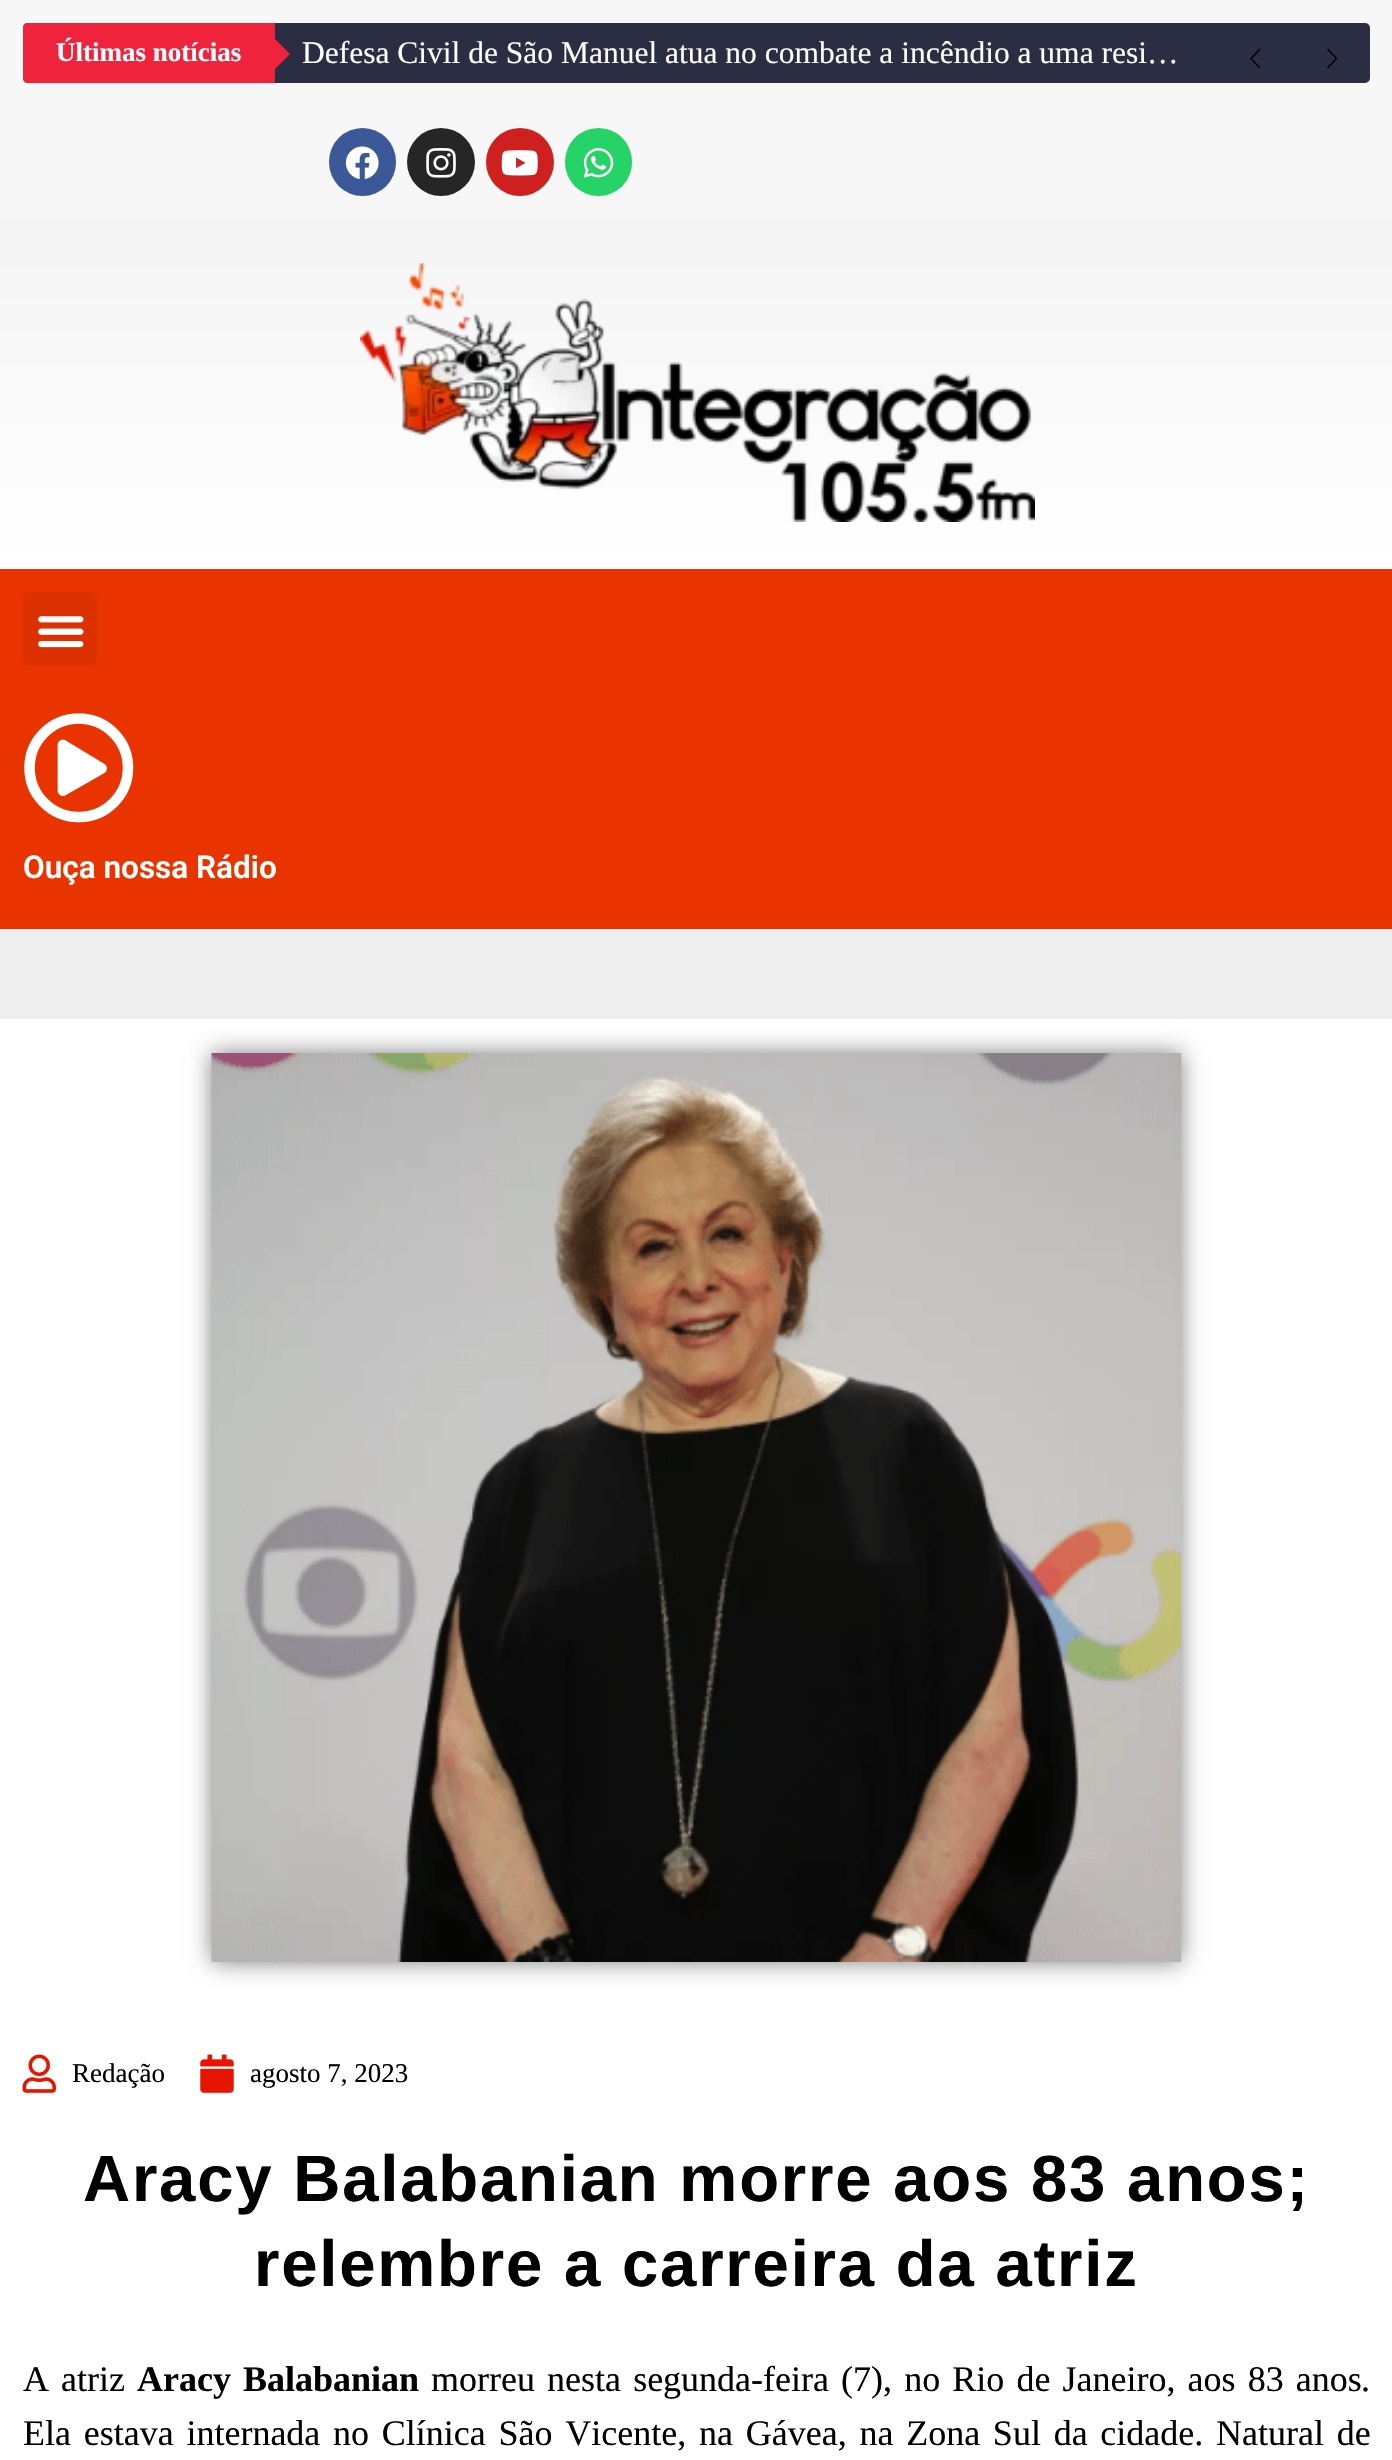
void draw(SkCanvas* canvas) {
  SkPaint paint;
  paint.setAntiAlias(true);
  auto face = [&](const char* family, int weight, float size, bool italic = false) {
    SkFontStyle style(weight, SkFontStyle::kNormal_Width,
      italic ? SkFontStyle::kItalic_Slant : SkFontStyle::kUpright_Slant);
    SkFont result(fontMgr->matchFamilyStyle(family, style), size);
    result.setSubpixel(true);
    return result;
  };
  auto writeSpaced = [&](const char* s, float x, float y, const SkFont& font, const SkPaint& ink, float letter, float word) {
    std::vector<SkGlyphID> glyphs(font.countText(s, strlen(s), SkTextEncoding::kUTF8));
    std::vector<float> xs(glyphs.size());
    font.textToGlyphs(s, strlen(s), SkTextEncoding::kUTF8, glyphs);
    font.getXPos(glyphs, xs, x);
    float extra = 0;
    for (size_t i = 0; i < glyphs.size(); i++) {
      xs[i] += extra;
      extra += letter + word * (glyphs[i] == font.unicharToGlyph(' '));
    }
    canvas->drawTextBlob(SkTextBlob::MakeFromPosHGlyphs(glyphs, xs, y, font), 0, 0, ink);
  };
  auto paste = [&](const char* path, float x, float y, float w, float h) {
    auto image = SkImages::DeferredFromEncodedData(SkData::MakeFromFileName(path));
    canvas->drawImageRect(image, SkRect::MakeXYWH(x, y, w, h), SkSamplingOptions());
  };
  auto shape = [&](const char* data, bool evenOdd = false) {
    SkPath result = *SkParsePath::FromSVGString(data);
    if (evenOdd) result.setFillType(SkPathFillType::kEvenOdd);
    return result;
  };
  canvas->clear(0xffeeeeee);
  paint.setColor(0xfff7f7f7);
  canvas->drawRect(SkRect::MakeXYWH(0, 0, 1392, 218), paint);
  paint.setColor(0xff2b2d42);
  canvas->drawRoundRect(SkRect::MakeXYWH(23, 23, 1347, 60), 5, 5, paint);
  paint.setColor(0xff3b5998);
  canvas->drawRoundRect(SkRect::MakeXYWH(329, 128, 67, 68), 33.5f, 33.5f, paint);
  canvas->save();
  canvas->clipRect(SkRect::MakeXYWH(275, 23, 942, 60));
  paint.setColor(0xff2b2d42);
  paint.setMaskFilter(SkMaskFilter::MakeBlur(kNormal_SkBlurStyle, 13.5f));
  canvas->drawRect(SkRect::MakeXYWH(245, -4, 57, 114), paint);
  paint.setMaskFilter(nullptr);
  canvas->restore();
  paint.setColor(0xffef233c);
  canvas->drawPath(shape("M28 23H275V83H28C25 83 23 81 23 78V28C23 25 25 23 28 23Z"), paint);
  canvas->drawPath(shape("M272 72V36L290 54Z"), paint);
  paint.setStroke(true);
  paint.setStrokeWidth(1.6f);
  paint.setColor(0xff000000);
  canvas->drawPath(shape("M1260 68L1251 58.5L1260 49"), paint);
  canvas->save();
  canvas->clipRect(SkRect::MakeXYWH(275, 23, 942, 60));
  paint.setStroke(false);
  paint.setColor(0xff2b2d42);
  paint.setMaskFilter(SkMaskFilter::MakeBlur(kNormal_SkBlurStyle, 13.5f));
  canvas->drawRect(SkRect::MakeXYWH(1190, -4, 57, 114), paint);
  paint.setMaskFilter(nullptr);
  canvas->restore();
  paint.setStroke(true);
  paint.setColor(0xff000000);
  canvas->drawPath(shape("M1327.5 49L1336.5 58.5L1327.5 68"), paint);
  paste("img/1.png", 345, 146, 34, 33);
  paint.setStroke(false);
  paint.setColor(0xff262626);
  canvas->drawCircle(441, 162, 34, paint);
  paste("img/2.png", 426, 148, 30, 30);
  paint.setColor(0xffcd201f);
  canvas->drawCircle(520, 162, 34, paint);
  paste("img/3.png", 501, 150, 37, 26);
  paint.setColor(0xff25d366);
  canvas->drawRoundRect(SkRect::MakeXYWH(565, 128, 67, 68), 33.5f, 33.5f, paint);
  paste("img/4.png", 583, 148, 31, 30);
  {
    const SkColor colors[] = {0xfff4f4f4, 0xffffffff};
    const float stops[] = {0, 1};
    const SkPoint ends[] = {{696, 218}, {696, 569}};
    paint.setShader(SkGradientShader::MakeLinear(ends, colors, stops, 2, SkTileMode::kClamp));
    paint.setAlpha(255);
  }
  canvas->drawRect(SkRect::MakeXYWH(0, 218, 1392, 351), paint);
  paste("img/5.png", 360, 263, 675, 259);
  paint.setShader(nullptr);
  paint.setColor(0xffe93400);
  canvas->drawRect(SkRect::MakeXYWH(0, 569, 1392, 360), paint);
  paint.setColor(0xffdd3100);
  canvas->drawRoundRect(SkRect::MakeXYWH(23, 592, 74, 74), 7, 7, paint);
  paste("img/6.png", 38, 616, 46, 32);
  paste("img/7.png", 24, 713, 110, 110);
  paint.setColor(0xffffffff);
  canvas->drawRect(SkRect::MakeXYWH(0, 1019, 1392, 1441), paint);
  paint.setColor(0x80000000);
  paint.setMaskFilter(SkMaskFilter::MakeBlur(kNormal_SkBlurStyle, 11));
  canvas->drawRect(SkRect::MakeXYWH(212, 1053, 969, 909), paint);
  paint.setMaskFilter(nullptr);
  paste("img/8.png", 211, 1053, 971, 909);
  paste("img/9.png", 22, 2054, 34, 39);
  paste("img/10.png", 200, 2054, 34, 39);
  auto f0 = face("Liberation Serif", 700, 27);
  paint.setColor(0xffffffff);
  canvas->drawString("Últimas notícias", 56, 61, f0, paint);
  auto f1 = face("Liberation Serif", 400, 31.5f);
  canvas->drawString("Defesa Civil de São Manuel atua no combate a incêndio a uma resi…", 302, 63, f1, paint);
  auto f2 = face("Roboto", 600, 31.5f);
  canvas->drawString("Ouça nossa Rádio", 23, 878, f2, paint);
  auto f3 = face("Liberation Serif", 400, 27);
  paint.setColor(0xff000000);
  canvas->drawString("Redação", 72, 2082, f3, paint);
  canvas->drawString("agosto 7, 2023", 250, 2082, f3, paint);
  auto f4 = face("Liberation Sans", 700, 65.25f);
  writeSpaced("Aracy Balabanian morre aos 83 anos;", 83, 2201, f4, paint, 1.8f, 0);
  writeSpaced("relembre a carreira da atriz", 254, 2286, f4, paint, 1.8f, 0);
  auto f5 = face("Liberation Serif", 400, 36);
  writeSpaced("A atriz", 23, 2391, f5, paint, 0, 3.1f);
  auto f6 = face("Liberation Serif", 700, 36);
  writeSpaced("Aracy Balabanian", 137, 2391, f6, paint, 0, 3.1f);
  writeSpaced("morreu nesta segunda-feira (7), no Rio de Janeiro, aos 83 anos", 431, 2391, f5, paint, 0, 3.1f);
  canvas->drawString(".", 1361, 2391, f5, paint);
  writeSpaced("Ela estava internada no Clínica São Vicente, na Gávea, na Zona Sul da cidade. Natural de", 23, 2445, f5, paint, 0, 3.75f);
}
